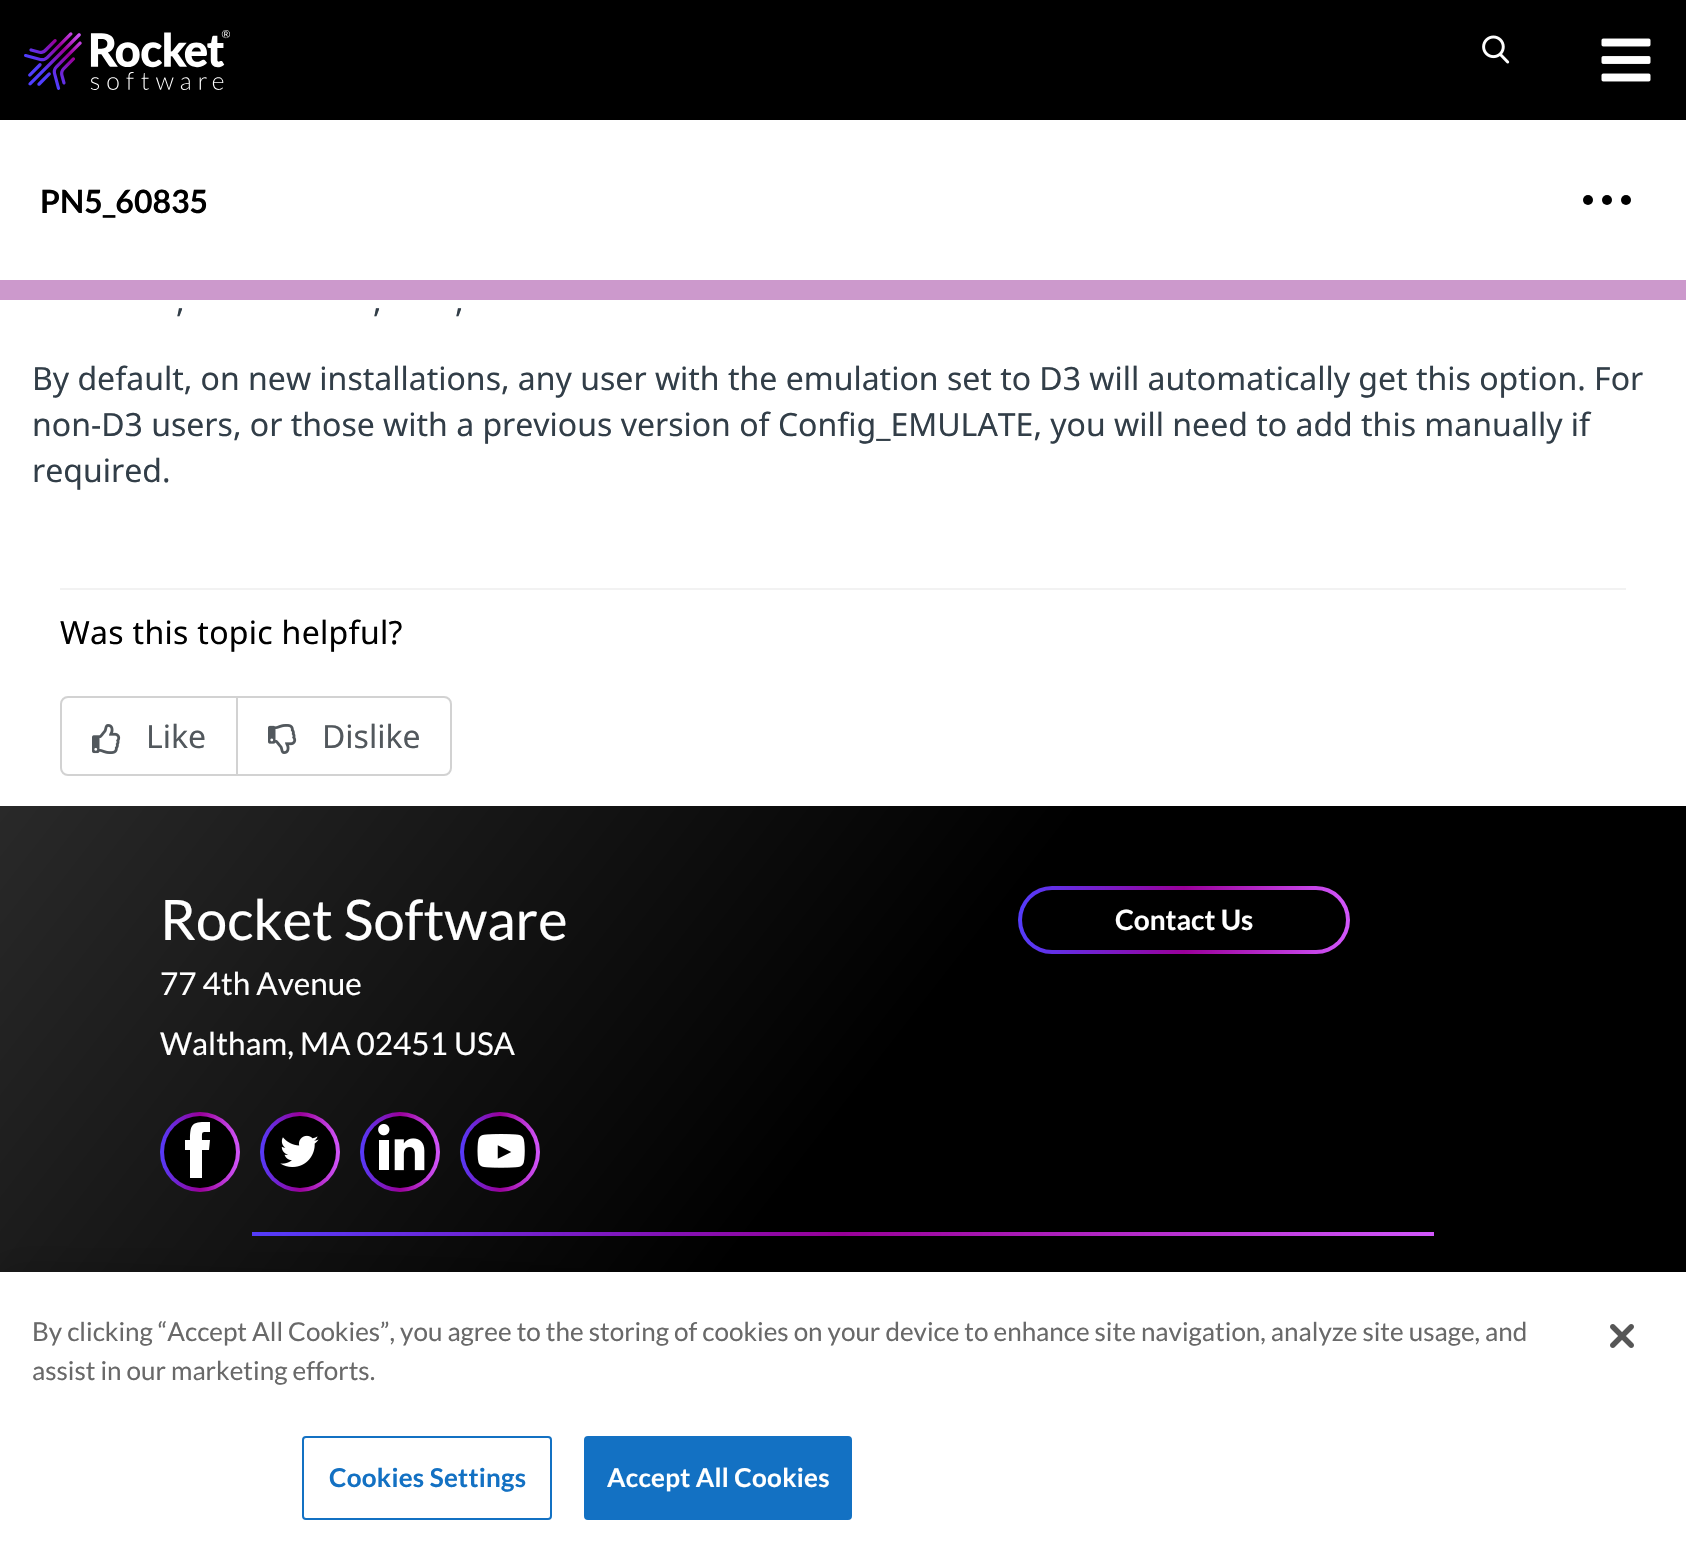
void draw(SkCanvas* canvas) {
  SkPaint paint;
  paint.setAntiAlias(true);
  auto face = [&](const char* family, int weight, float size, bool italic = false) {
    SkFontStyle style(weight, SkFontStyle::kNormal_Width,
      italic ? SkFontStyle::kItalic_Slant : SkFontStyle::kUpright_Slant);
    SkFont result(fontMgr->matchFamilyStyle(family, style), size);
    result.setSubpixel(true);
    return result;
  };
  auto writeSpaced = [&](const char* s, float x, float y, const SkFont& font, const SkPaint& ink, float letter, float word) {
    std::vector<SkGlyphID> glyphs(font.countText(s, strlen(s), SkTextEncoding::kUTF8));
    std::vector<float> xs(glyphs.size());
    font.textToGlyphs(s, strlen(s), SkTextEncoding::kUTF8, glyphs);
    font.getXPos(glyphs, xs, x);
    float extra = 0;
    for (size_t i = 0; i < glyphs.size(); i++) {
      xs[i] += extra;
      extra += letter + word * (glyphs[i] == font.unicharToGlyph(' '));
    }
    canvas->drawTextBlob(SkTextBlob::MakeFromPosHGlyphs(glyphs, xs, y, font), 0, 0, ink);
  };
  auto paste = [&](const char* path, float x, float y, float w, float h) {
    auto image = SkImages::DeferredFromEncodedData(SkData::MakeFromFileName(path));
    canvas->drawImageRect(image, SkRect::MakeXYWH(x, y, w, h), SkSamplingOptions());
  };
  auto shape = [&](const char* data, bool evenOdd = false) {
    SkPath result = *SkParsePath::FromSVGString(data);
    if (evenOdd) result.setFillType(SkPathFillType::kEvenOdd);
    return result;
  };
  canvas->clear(0xffffffff);
  paint.setColor(0xff000000);
  canvas->drawRect(SkRect::MakeXYWH(0, 0, 1686, 120), paint);
  paste("img/1.png", 24, 30, 206, 60);
  paste("img/2.png", 1482, 35, 28, 29);
  paste("img/3.png", 1601, 38, 50, 44);
  canvas->drawCircle(1588, 200, 5, paint);
  canvas->drawCircle(1607, 200, 5, paint);
  canvas->drawCircle(1626, 200, 5, paint);
  paint.setColor(0xffcc99cc);
  canvas->drawRect(SkRect::MakeXYWH(0, 280, 1686, 20), paint);
  paint.setColor(0xfff2f2f2);
  canvas->drawRect(SkRect::MakeXYWH(60, 588, 1566, 2), paint);
  paint.setStroke(true);
  paint.setStrokeWidth(2);
  paint.setColor(0xffd2d2d2);
  canvas->drawRoundRect(SkRect::MakeXYWH(61, 697, 390, 78), 7, 7, paint);
  paint.setStroke(false);
  canvas->drawRect(SkRect::MakeXYWH(236, 698, 2, 76), paint);
  paste("img/4.png", 92, 724, 29, 30);
  paste("img/5.png", 268, 724, 29, 30);
  {
    const SkColor colors[] = {0xff292929, 0xff000000, 0xff000000};
    const float stops[] = {0, 0.48f, 1};
    const SkPoint ends[] = {{138, 629}, {1548, 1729}};
    paint.setShader(SkGradientShader::MakeLinear(ends, colors, stops, 3, SkTileMode::kClamp));
    paint.setAlpha(255);
  }
  canvas->drawRect(SkRect::MakeXYWH(0, 806, 1686, 466), paint);
  {
    const SkColor colors[] = {0xff543cfb, 0xff990099, 0xffd257fc};
    const float stops[] = {0, 0.5f, 1};
    const SkPoint ends[] = {{160, 1152}, {240, 1152}};
    paint.setShader(SkGradientShader::MakeLinear(ends, colors, stops, 3, SkTileMode::kClamp));
    paint.setAlpha(255);
  }
  canvas->drawCircle(200, 1152, 40, paint);
  paint.setShader(nullptr);
  paint.setColor(0xff000000);
  canvas->drawCircle(200, 1152, 36, paint);
  paint.setColor(0xffffffff);
  canvas->drawPath(shape("M190 1178H202V1150H209L210 1140H202C202 1131 201 1132 210 1132V1122C193 1122 190 1122 190 1140H185V1150H190Z", true), paint);
  {
    const SkColor colors[] = {0xff543cfb, 0xff990099, 0xffd257fc};
    const float stops[] = {0, 0.5f, 1};
    const SkPoint ends[] = {{260, 1152}, {340, 1152}};
    paint.setShader(SkGradientShader::MakeLinear(ends, colors, stops, 3, SkTileMode::kClamp));
    paint.setAlpha(255);
  }
  canvas->drawCircle(300, 1152, 40, paint);
  paint.setShader(nullptr);
  paint.setColor(0xff000000);
  canvas->drawCircle(300, 1152, 36, paint);
  paste("img/6.png", 280, 1135, 39, 32);
  {
    const SkColor colors[] = {0xff543cfb, 0xff990099, 0xffd257fc};
    const float stops[] = {0, 0.5f, 1};
    const SkPoint ends[] = {{360, 1152}, {440, 1152}};
    paint.setShader(SkGradientShader::MakeLinear(ends, colors, stops, 3, SkTileMode::kClamp));
    paint.setAlpha(255);
  }
  canvas->drawCircle(400, 1152, 40, paint);
  paint.setShader(nullptr);
  paint.setColor(0xff000000);
  canvas->drawCircle(400, 1152, 36, paint);
  paste("img/7.png", 378, 1123, 47, 48);
  {
    const SkColor colors[] = {0xff543cfb, 0xff990099, 0xffd257fc};
    const float stops[] = {0, 0.5f, 1};
    const SkPoint ends[] = {{460, 1152}, {540, 1152}};
    paint.setShader(SkGradientShader::MakeLinear(ends, colors, stops, 3, SkTileMode::kClamp));
    paint.setAlpha(255);
  }
  canvas->drawCircle(500, 1152, 40, paint);
  paint.setShader(nullptr);
  paint.setColor(0xff000000);
  canvas->drawCircle(500, 1152, 36, paint);
  paste("img/8.png", 477, 1134, 48, 34);
  {
    const SkColor colors[] = {0xff543cfb, 0xff990099, 0xffd257fc};
    const float stops[] = {0, 0.5f, 1};
    const SkPoint ends[] = {{1018, 920}, {1350, 920}};
    paint.setShader(SkGradientShader::MakeLinear(ends, colors, stops, 3, SkTileMode::kClamp));
    paint.setAlpha(255);
  }
  canvas->drawRoundRect(SkRect::MakeXYWH(1018, 886, 332, 68), 34, 34, paint);
  paint.setShader(nullptr);
  paint.setColor(0xff000000);
  canvas->drawRoundRect(SkRect::MakeXYWH(1022, 890, 324, 60), 30, 30, paint);
  {
    const SkColor colors[] = {0xff543cfb, 0xff990099, 0xffd257fc};
    const float stops[] = {0, 0.5f, 1};
    const SkPoint ends[] = {{252, 1234}, {1434, 1234}};
    paint.setShader(SkGradientShader::MakeLinear(ends, colors, stops, 3, SkTileMode::kClamp));
    paint.setAlpha(255);
  }
  canvas->drawRect(SkRect::MakeXYWH(252, 1232, 1182, 4), paint);
  paint.setShader(nullptr);
  paint.setColor(0x33000000);
  paint.setMaskFilter(SkMaskFilter::MakeBlur(kNormal_SkBlurStyle, 18));
  canvas->drawRect(SkRect::MakeXYWH(0, 1272, 1686, 280), paint);
  paint.setMaskFilter(nullptr);
  paint.setColor(0xffffffff);
  canvas->drawRect(SkRect::MakeXYWH(0, 1272, 1686, 280), paint);
  paint.setStroke(true);
  paint.setColor(0xff1371c3);
  canvas->drawRoundRect(SkRect::MakeXYWH(303, 1437, 248, 82), 3, 3, paint);
  paint.setStroke(false);
  canvas->drawRoundRect(SkRect::MakeXYWH(585, 1437, 266, 82), 3, 3, paint);
  paint.setStroke(true);
  canvas->drawRoundRect(SkRect::MakeXYWH(585, 1437, 266, 82), 3, 3, paint);
  paste("img/9.png", 1610, 1324, 24, 24);
  auto f0 = face("Lato", 700, 32);
  paint.setStroke(false);
  paint.setColor(0xff000000);
  canvas->drawString("PN5_60835", 40, 213, f0, paint);
  auto f1 = face("Noto Sans", 400, 32);
  paint.setColor(0xff323e48);
  {
    const struct { const char* s; float x, y; } items[] = {
      {",", 176, 312},
      {",", 373, 312},
      {",", 455, 312},
      {"By default, on new installations, any user with the emulation set to D3 will automatically get this option. For", 32, 390},
      {"non-D3 users, or those with a previous version of Config_EMULATE, you will need to add this manually if", 32, 436},
      {"required.", 32, 482},
    };
    for (auto [s, x, y] : items) {
      canvas->drawString(s, x, y, f1, paint);
    }
  }
  paint.setColor(0xff000000);
  writeSpaced("Was this topic helpful?", 60, 644, f1, paint, 0.3f, 0);
  paint.setColor(0xff52585d);
  canvas->drawString("Like", 146, 748, f1, paint);
  canvas->drawString("Dislike", 322, 748, f1, paint);
  auto f2 = face("Lato", 400, 56);
  paint.setColor(0xffffffff);
  canvas->drawString("Rocket Software", 160, 940, f2, paint);
  auto f3 = face("Lato", 400, 31.5f);
  canvas->drawString("77 4th Avenue", 160, 995, f3, paint);
  canvas->drawString("Waltham, MA 02451 USA", 160, 1055, f3, paint);
  auto f4 = face("Lato", 700, 28);
  canvas->drawString("Contact Us", 1115, 930, f4, paint);
  auto f5 = face("Lato", 400, 26.02f);
  paint.setColor(0xff696969);
  canvas->drawString("By clicking “Accept All Cookies”, you agree to the storing of cookies on your device to enhance site navigation, analyze site usage, and", 32, 1341, f5, paint);
  canvas->drawString("assist in our marketing efforts.", 32, 1380, f5, paint);
  auto f6 = face("Lato", 700, 26.02f);
  paint.setColor(0xff1371c3);
  writeSpaced("Cookies Settings", 329, 1487, f6, paint, 0.25f, 0);
  paint.setColor(0xffffffff);
  writeSpaced("Accept All Cookies", 607, 1487, f6, paint, 0.25f, 0);
}
